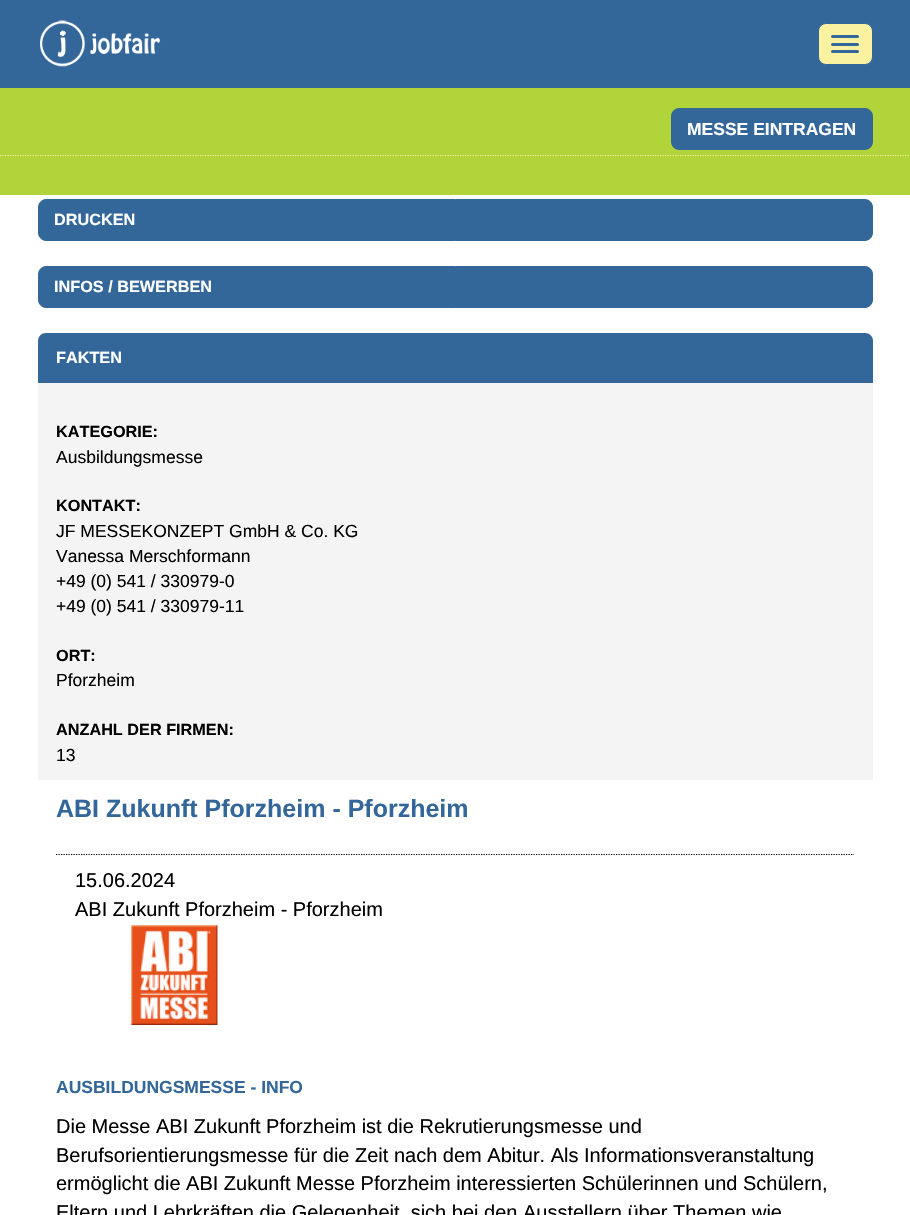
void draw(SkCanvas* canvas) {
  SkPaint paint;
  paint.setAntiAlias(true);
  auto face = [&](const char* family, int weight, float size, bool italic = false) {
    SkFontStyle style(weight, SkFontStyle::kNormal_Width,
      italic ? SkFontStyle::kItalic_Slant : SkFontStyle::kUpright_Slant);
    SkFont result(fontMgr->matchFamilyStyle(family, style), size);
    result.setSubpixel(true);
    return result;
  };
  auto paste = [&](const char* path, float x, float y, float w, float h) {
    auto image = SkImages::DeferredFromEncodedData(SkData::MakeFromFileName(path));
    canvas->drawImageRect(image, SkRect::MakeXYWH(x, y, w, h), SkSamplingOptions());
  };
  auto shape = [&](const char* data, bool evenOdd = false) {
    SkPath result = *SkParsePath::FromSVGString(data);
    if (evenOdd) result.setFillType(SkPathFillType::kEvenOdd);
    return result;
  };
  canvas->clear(0xffffffff);
  paint.setColor(0xff336699);
  canvas->drawRect(SkRect::MakeXYWH(0, 0, 910, 88), paint);
  paste("img/1.png", 40, 20, 121, 47);
  paint.setColor(0xfffaf2a1);
  canvas->drawRoundRect(SkRect::MakeXYWH(818.5f, 23.5f, 54, 41), 7.5f, 7.5f, paint);
  paint.setStroke(true);
  paint.setStrokeWidth(1);
  paint.setColor(0xff336699);
  canvas->drawRoundRect(SkRect::MakeXYWH(818.5f, 23.5f, 54, 41), 7.5f, 7.5f, paint);
  paint.setStroke(false);
  canvas->drawRoundRect(SkRect::MakeXYWH(831, 35, 28, 3), 1.5f, 1.5f, paint);
  canvas->drawRoundRect(SkRect::MakeXYWH(831, 43, 28, 3), 1.5f, 1.5f, paint);
  canvas->drawRoundRect(SkRect::MakeXYWH(831, 50, 28, 3), 1.5f, 1.5f, paint);
  paint.setColor(0xffb0d439);
  canvas->drawRect(SkRect::MakeXYWH(0, 88, 910, 107), paint);
  paint.setStroke(true);
  paint.setStrokeWidth(1.2f);
  paint.setColor(0xfffaf2a1);
  paint.setPathEffect(SkDashPathEffect::Make({{1.25f, 1.25f}}, 0));
  canvas->drawPath(shape("M0 155.5H910"), paint);
  paint.setPathEffect(nullptr);
  paint.setStroke(false);
  paint.setColor(0xff336699);
  canvas->drawRoundRect(SkRect::MakeXYWH(671.5f, 108.5f, 201, 41), 7.5f, 7.5f, paint);
  paint.setStroke(true);
  paint.setStrokeWidth(1);
  canvas->drawRoundRect(SkRect::MakeXYWH(671.5f, 108.5f, 201, 41), 7.5f, 7.5f, paint);
  paint.setStroke(false);
  canvas->drawRoundRect(SkRect::MakeXYWH(38.5f, 199.5f, 834, 41), 7.5f, 7.5f, paint);
  paint.setStroke(true);
  canvas->drawRoundRect(SkRect::MakeXYWH(38.5f, 199.5f, 834, 41), 7.5f, 7.5f, paint);
  paint.setStroke(false);
  canvas->drawRoundRect(SkRect::MakeXYWH(38.5f, 266.5f, 834, 41), 7.5f, 7.5f, paint);
  paint.setStroke(true);
  canvas->drawRoundRect(SkRect::MakeXYWH(38.5f, 266.5f, 834, 41), 7.5f, 7.5f, paint);
  paint.setStroke(false);
  canvas->drawPath(shape("M46 333H865C869.5 333 873 336.5 873 341V383H38V341C38 336.5 41.5 333 46 333Z"), paint);
  paint.setColor(0xfff4f4f4);
  canvas->drawRect(SkRect::MakeXYWH(38, 383, 835, 397), paint);
  paint.setStroke(true);
  paint.setStrokeWidth(1.2f);
  paint.setColor(0xff000000);
  paint.setPathEffect(SkDashPathEffect::Make({{1.25f, 1.25f}}, 0));
  canvas->drawPath(shape("M56 854.5H854"), paint);
  paint.setPathEffect(nullptr);
  paste("img/2.png", 131, 925, 87, 100);
  auto f0 = face("Liberation Sans", 700, 17.5f);
  paint.setStroke(false);
  paint.setColor(0xffffffff);
  canvas->drawString("MESSE EINTRAGEN", 687, 135, f0, paint);
  auto f1 = face("Liberation Sans", 700, 16.25f);
  {
    const struct { const char* s; float x, y; } items[] = {
      {"DRUCKEN", 54, 225},
      {"INFOS / BEWERBEN", 54, 292},
      {"FAKTEN", 56, 363},
    };
    for (auto [s, x, y] : items) {
      canvas->drawString(s, x, y, f1, paint);
    }
  }
  paint.setColor(0xff000000);
  canvas->drawString("KATEGORIE:", 56, 437, f1, paint);
  auto f2 = face("Liberation Sans", 400, 17.5f);
  canvas->drawString("Ausbildungsmesse", 56, 463, f2, paint);
  canvas->drawString("KONTAKT:", 56, 511, f1, paint);
  {
    const struct { const char* s; float x, y; } items[] = {
      {"JF MESSEKONZEPT GmbH & Co. KG", 56, 537},
      {"Vanessa Merschformann", 56, 562},
      {"+49 (0) 541 / 330979-0", 56, 587},
      {"+49 (0) 541 / 330979-11", 56, 612},
    };
    for (auto [s, x, y] : items) {
      canvas->drawString(s, x, y, f2, paint);
    }
  }
  canvas->drawString("ORT:", 56, 661, f1, paint);
  canvas->drawString("Pforzheim", 56, 686, f2, paint);
  canvas->drawString("ANZAHL DER FIRMEN:", 56, 735, f1, paint);
  canvas->drawString("13", 56, 761, f2, paint);
  auto f3 = face("Liberation Sans", 700, 25);
  paint.setColor(0xff336699);
  canvas->drawString("ABI Zukunft Pforzheim - Pforzheim", 56, 817, f3, paint);
  auto f4 = face("Liberation Sans", 400, 20);
  paint.setColor(0xff000000);
  canvas->drawString("15.06.2024", 75, 887, f4, paint);
  canvas->drawString("ABI Zukunft Pforzheim - Pforzheim", 75, 916, f4, paint);
  paint.setColor(0xff336699);
  canvas->drawString("AUSBILDUNGSMESSE - INFO", 56, 1093, f0, paint);
  paint.setColor(0xff000000);
  {
    const struct { const char* s; float x, y; } items[] = {
      {"Die Messe ABI Zukunft Pforzheim ist die Rekrutierungsmesse und", 56, 1133},
      {"Berufsorientierungsmesse für die Zeit nach dem Abitur. Als Informationsveranstaltung", 56, 1162},
      {"ermöglicht die ABI Zukunft Messe Pforzheim interessierten Schülerinnen und Schülern,", 56, 1190},
      {"Eltern und Lehrkräften die Gelegenheit, sich bei den Ausstellern über Themen wie", 56, 1219},
    };
    for (auto [s, x, y] : items) {
      canvas->drawString(s, x, y, f4, paint);
    }
  }
}
